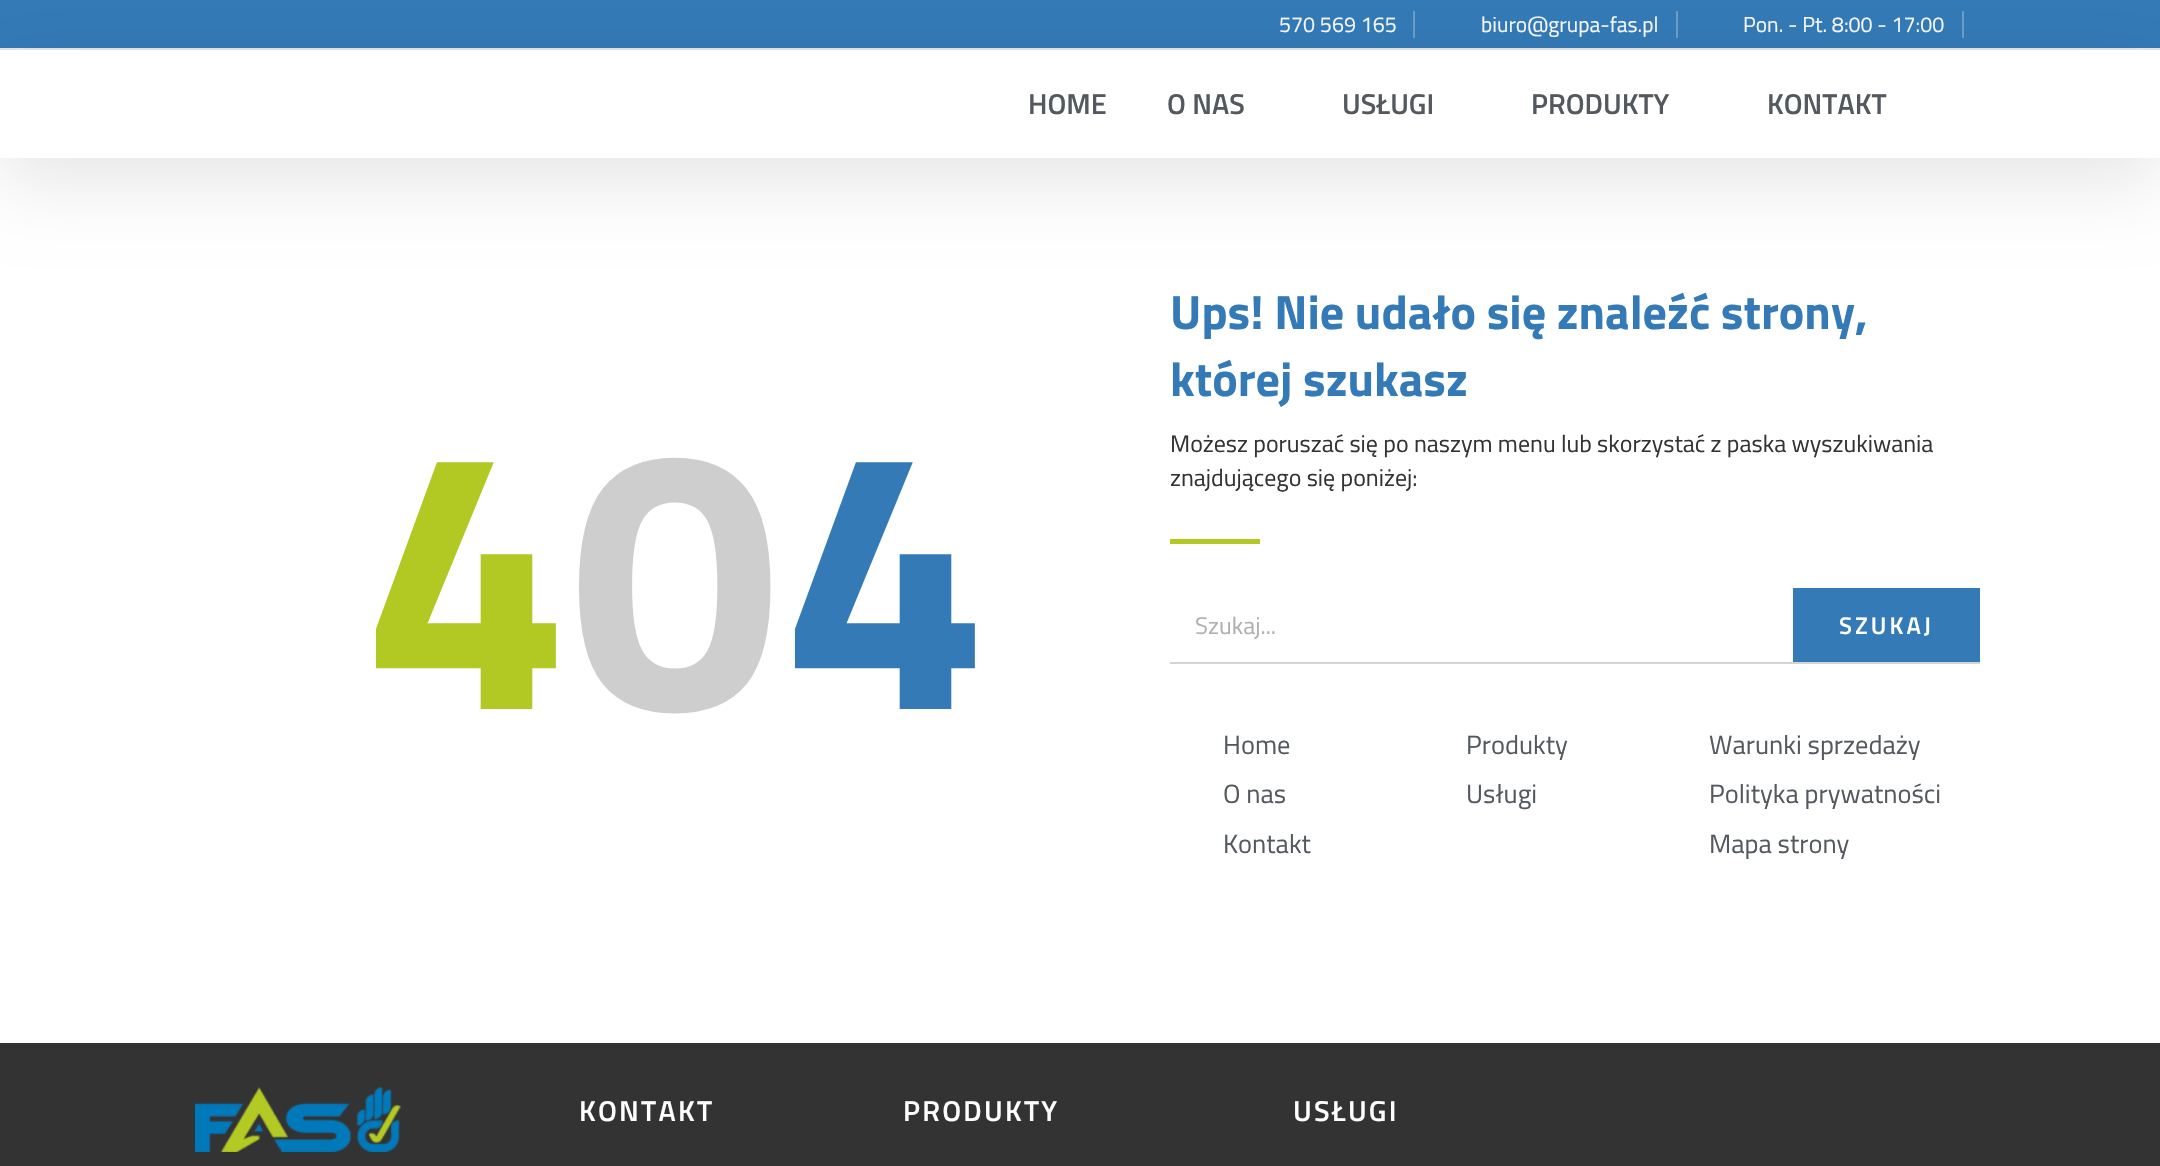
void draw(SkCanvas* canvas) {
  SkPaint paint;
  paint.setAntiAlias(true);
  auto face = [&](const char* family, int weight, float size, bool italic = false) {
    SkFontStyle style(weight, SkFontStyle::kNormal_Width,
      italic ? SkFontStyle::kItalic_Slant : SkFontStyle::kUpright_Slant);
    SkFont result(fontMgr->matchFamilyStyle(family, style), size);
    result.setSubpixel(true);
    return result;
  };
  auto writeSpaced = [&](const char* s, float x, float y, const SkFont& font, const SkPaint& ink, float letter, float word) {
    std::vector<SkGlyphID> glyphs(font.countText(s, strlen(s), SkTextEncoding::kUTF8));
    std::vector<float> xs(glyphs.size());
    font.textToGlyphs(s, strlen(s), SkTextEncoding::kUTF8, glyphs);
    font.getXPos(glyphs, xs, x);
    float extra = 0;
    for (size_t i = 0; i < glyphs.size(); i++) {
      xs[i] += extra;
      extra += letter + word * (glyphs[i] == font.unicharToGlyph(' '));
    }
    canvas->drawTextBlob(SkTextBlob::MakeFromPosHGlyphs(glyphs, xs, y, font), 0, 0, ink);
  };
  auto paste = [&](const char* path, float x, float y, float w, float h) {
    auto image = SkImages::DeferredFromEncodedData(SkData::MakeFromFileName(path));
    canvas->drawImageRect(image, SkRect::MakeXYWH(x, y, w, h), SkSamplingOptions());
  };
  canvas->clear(0xffffffff);
  {
    const struct { float x, y, w, h; SkColor color; } items[] = {
      {0, 0, 2160, 48, 0xff337ab7},
      {0, 48, 2160, 2, 0xffe5e5e5},
      {1413, 11, 2, 27, 0xff6f9dc4},
      {1676, 11, 2, 27, 0xff6f9dc4},
      {1962, 11, 2, 27, 0xff6f9dc4},
    };
    for (auto [x, y, w, h, color] : items) {
      paint.setColor(color);
      canvas->drawRect(SkRect::MakeXYWH(x, y, w, h), paint);
    }
  }
  paint.setColor(0x1a000000);
  paint.setMaskFilter(SkMaskFilter::MakeBlur(kNormal_SkBlurStyle, 37.5f));
  canvas->drawRect(SkRect::MakeXYWH(0, 72, 2160, 108), paint);
  paint.setMaskFilter(nullptr);
  {
    const struct { float x, y, w, h; SkColor color; } items[] = {
      {0, 50, 2160, 108, 0xffffffff},
      {1170, 539, 90, 5, 0xffb3c923},
      {1170, 662, 810, 2, 0xffd4d4d4},
      {1793, 588, 187, 74, 0xff337ab7},
      {0, 1043, 2160, 123, 0xff333333},
    };
    for (auto [x, y, w, h, color] : items) {
      paint.setColor(color);
      canvas->drawRect(SkRect::MakeXYWH(x, y, w, h), paint);
    }
  }
  paste("img/1.png", 195, 1087, 206, 65);
  auto f0 = face("Titillium Web", 400, 21.5f);
  paint.setColor(0xfff5f5f5);
  {
    const struct { const char* s; float x, y; } items[] = {
      {"570 569 165", 1279, 32},
      {"biuro@grupa-fas.pl", 1481, 32},
      {"Pon. - Pt. 8:00 - 17:00", 1743, 32},
    };
    for (auto [s, x, y] : items) {
      canvas->drawString(s, x, y, f0, paint);
    }
  }
  auto f1 = face("Titillium Web", 600, 28.75f);
  paint.setColor(0xff54595f);
  {
    const struct { const char* s; float x, y; } items[] = {
      {"HOME", 1028, 114},
      {"O NAS", 1167, 114},
      {"USŁUGI", 1342, 114},
      {"PRODUKTY", 1531, 114},
      {"KONTAKT", 1767, 114},
    };
    for (auto [s, x, y] : items) {
      canvas->drawString(s, x, y, f1, paint);
    }
  }
  auto f2 = face("Titillium Web", 700, 374);
  paint.setColor(0xffb3c923);
  canvas->drawString("4", 361, 709, f2, paint);
  paint.setColor(0xffcecece);
  canvas->drawString("0", 570, 709, f2, paint);
  paint.setColor(0xff337ab7);
  canvas->drawString("4", 780, 709, f2, paint);
  auto f3 = face("Titillium Web", 700, 48);
  canvas->drawString("Ups! Nie udało się znaleźć strony,", 1170, 329, f3, paint);
  canvas->drawString("której szukasz", 1170, 396, f3, paint);
  auto f4 = face("Titillium Web", 400, 24);
  paint.setColor(0xff333333);
  canvas->drawString("Możesz poruszać się po naszym menu lub skorzystać z paska wyszukiwania", 1170, 452, f4, paint);
  canvas->drawString("znajdującego się poniżej:", 1170, 486, f4, paint);
  paint.setColor(0xffafafaf);
  canvas->drawString("Szukaj...", 1195, 634, f4, paint);
  auto f5 = face("Titillium Web", 600, 24);
  paint.setColor(0xffffffff);
  writeSpaced("SZUKAJ", 1839, 634, f5, paint, 3, 0);
  auto f6 = face("Titillium Web", 400, 26.5f);
  paint.setColor(0xff54595f);
  {
    const struct { const char* s; float x, y; } items[] = {
      {"Home", 1223, 754},
      {"O nas", 1223, 803},
      {"Kontakt", 1223, 853},
      {"Produkty", 1466, 754},
      {"Usługi", 1466, 803},
      {"Warunki sprzedaży", 1709, 754},
      {"Polityka prywatności", 1709, 803},
      {"Mapa strony", 1709, 853},
    };
    for (auto [s, x, y] : items) {
      canvas->drawString(s, x, y, f6, paint);
    }
  }
  paint.setColor(0xffffffff);
  {
    const struct { const char* s; float x, y; } items[] = {
      {"KONTAKT", 579, 1121},
      {"PRODUKTY", 903, 1121},
      {"USŁUGI", 1293, 1121},
    };
    for (auto [s, x, y] : items) {
      writeSpaced(s, x, y, f1, paint, 2.25f, 0);
    }
  }
}
